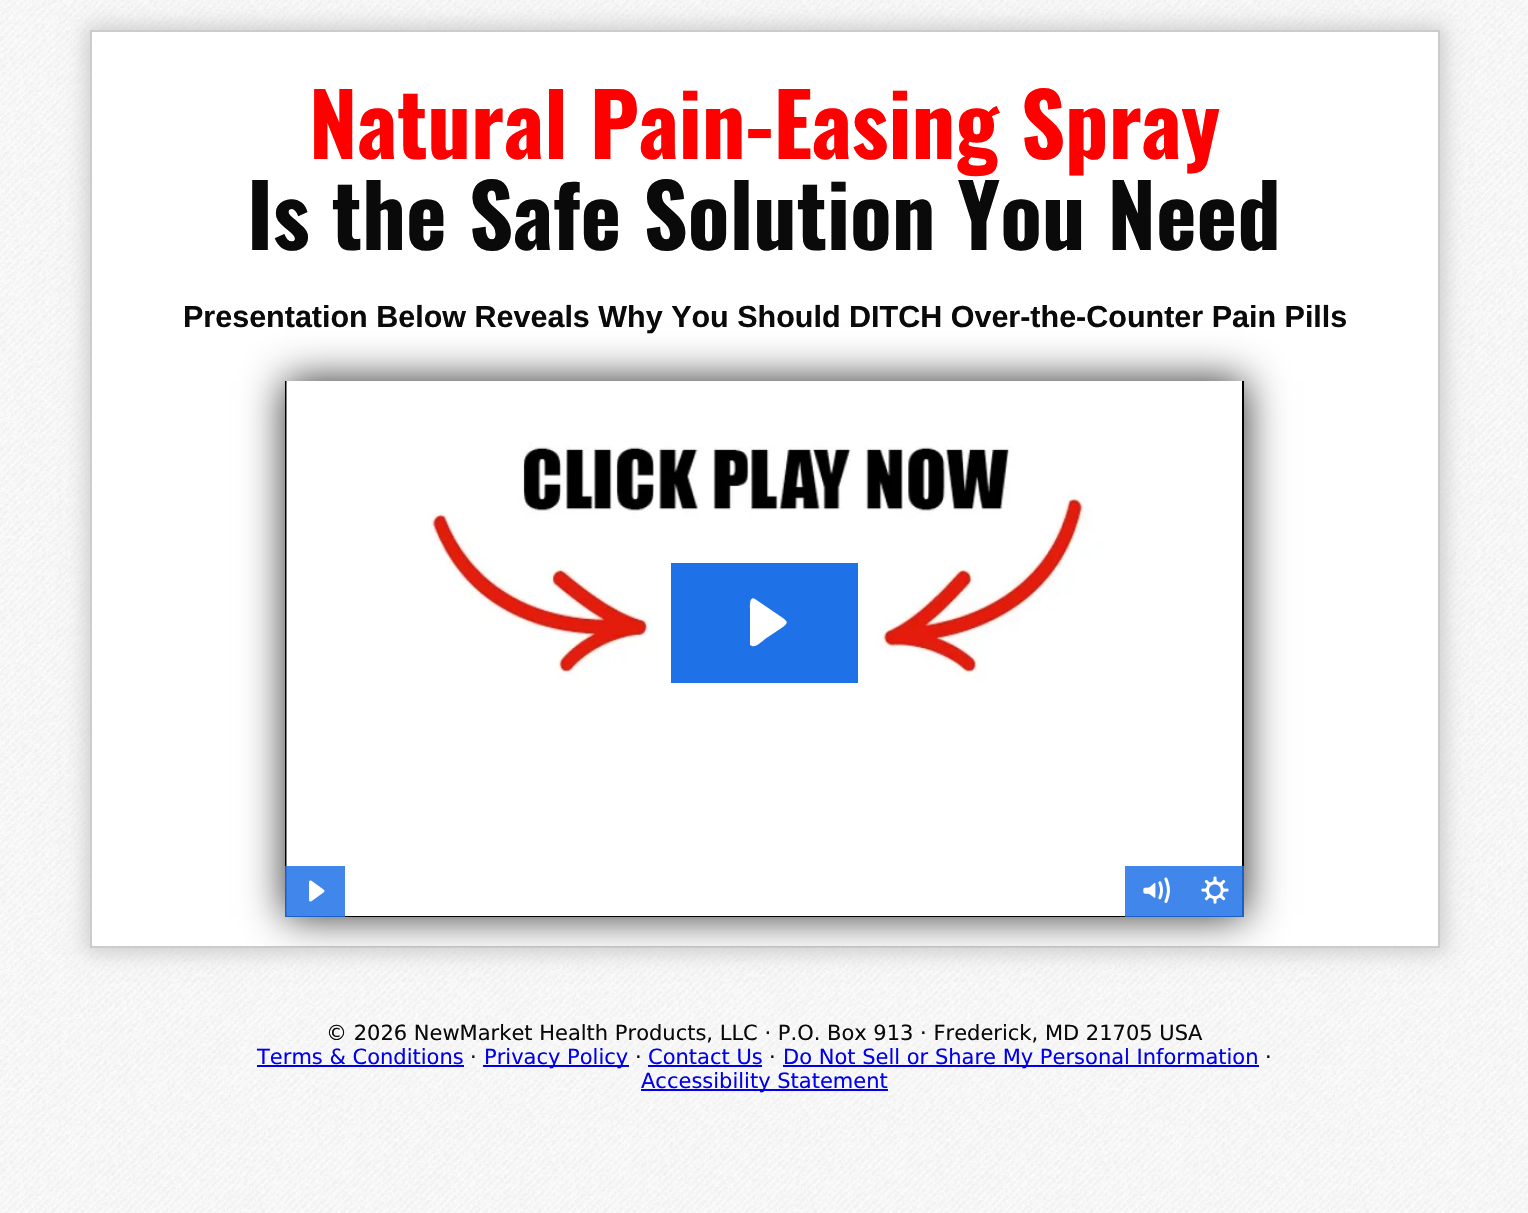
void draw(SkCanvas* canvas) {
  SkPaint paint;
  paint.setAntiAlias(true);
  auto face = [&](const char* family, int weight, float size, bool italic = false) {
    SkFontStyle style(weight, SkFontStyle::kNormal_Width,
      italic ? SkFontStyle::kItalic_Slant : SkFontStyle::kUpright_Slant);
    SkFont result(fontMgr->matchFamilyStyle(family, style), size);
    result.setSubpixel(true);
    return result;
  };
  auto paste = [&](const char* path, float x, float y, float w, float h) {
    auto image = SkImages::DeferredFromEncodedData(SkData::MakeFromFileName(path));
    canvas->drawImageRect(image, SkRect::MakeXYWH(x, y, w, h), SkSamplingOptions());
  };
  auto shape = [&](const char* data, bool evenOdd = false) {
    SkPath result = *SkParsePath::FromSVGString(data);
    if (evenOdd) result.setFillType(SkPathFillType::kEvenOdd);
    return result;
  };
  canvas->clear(0xffffffff);
  paste("img/1.png", 0, 0, 1528, 1213);
  paint.setColor(0xffcccccc);
  paint.setMaskFilter(SkMaskFilter::MakeBlur(kNormal_SkBlurStyle, 10));
  canvas->drawRect(SkRect::MakeXYWH(86, 26, 1359, 927), paint);
  paint.setMaskFilter(nullptr);
  paint.setColor(0xffffffff);
  canvas->drawRect(SkRect::MakeXYWH(91, 31, 1348, 916), paint);
  paint.setStroke(true);
  paint.setStrokeWidth(2);
  paint.setColor(0xffcccccc);
  canvas->drawRect(SkRect::MakeXYWH(91, 31, 1348, 916), paint);
  canvas->save();
  canvas->clipRect(SkRect::MakeXYWH(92, 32, 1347, 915));
  paint.setStroke(false);
  paint.setColor(0xff323232);
  paint.setMaskFilter(SkMaskFilter::MakeBlur(kNormal_SkBlurStyle, 19.5f));
  canvas->drawRect(SkRect::MakeXYWH(285, 380, 960, 537), paint);
  paint.setMaskFilter(nullptr);
  canvas->restore();
  paint.setColor(0xff000000);
  canvas->drawRect(SkRect::MakeXYWH(285, 381, 959, 536), paint);
  paste("img/2.png", 286, 381, 956, 535);
  paint.setColor(0xff1e71e7);
  canvas->drawRect(SkRect::MakeXYWH(671, 563, 187, 120), paint);
  paint.setColor(0xffffffff);
  canvas->drawPath(shape("M755 599C749 595 750 608 750 608V645L752 646C755 648 763 641 765 639L780 629C789 623 789 622 780 616Z", true), paint);
  paint.setColor(0xd91e71e7);
  canvas->drawRect(SkRect::MakeXYWH(285, 866, 60, 51), paint);
  canvas->drawRect(SkRect::MakeXYWH(1125, 866, 119, 51), paint);
  paste("img/3.png", 309, 880, 16, 22);
  paste("img/4.png", 1143, 877, 27, 26);
  paste("img/5.png", 1201, 876, 28, 28);
  {
    const struct { float x, y, w, h; SkColor color; } items[] = {
      {257, 1065, 207, 2, 0xff0000ee},
      {483, 1065, 146, 2, 0xff0000ee},
      {648, 1065, 114, 2, 0xff0000ee},
      {783, 1065, 476, 2, 0xff0000ee},
      {641, 1089, 247, 2, 0xff0000ee},
    };
    for (auto [x, y, w, h, color] : items) {
      paint.setColor(color);
      canvas->drawRect(SkRect::MakeXYWH(x, y, w, h), paint);
    }
  }
  auto f0 = face("Oswald", 700, 86.4f);
  paint.setColor(0xffff0000);
  canvas->drawString("Natural Pain-Easing Spray", 309, 159, f0, paint);
  paint.setColor(0xff0a0a0a);
  canvas->drawString("Is the Safe Solution You Need", 247, 250, f0, paint);
  auto f1 = face("Liberation Sans", 700, 30.5f);
  canvas->drawString("Presentation Below Reveals Why You Should DITCH Over-the-Counter Pain Pills", 183, 327, f1, paint);
  auto f2 = face("DejaVu Sans", 400, 21);
  canvas->drawString("© 2026 NewMarket Health Products, LLC · P.O. Box 913 · Frederick, MD 21705 USA", 326, 1040, f2, paint);
  paint.setColor(0xff0000ee);
  canvas->drawString("Terms & Conditions", 257, 1064, f2, paint);
  paint.setColor(0xff0a0a0a);
  canvas->drawString("·", 470, 1064, f2, paint);
  paint.setColor(0xff0000ee);
  canvas->drawString("Privacy Policy", 484, 1064, f2, paint);
  paint.setColor(0xff0a0a0a);
  canvas->drawString("·", 635, 1064, f2, paint);
  paint.setColor(0xff0000ee);
  canvas->drawString("Contact Us", 648, 1064, f2, paint);
  paint.setColor(0xff0a0a0a);
  canvas->drawString("·", 769, 1064, f2, paint);
  paint.setColor(0xff0000ee);
  canvas->drawString("Do Not Sell or Share My Personal Information", 783, 1064, f2, paint);
  paint.setColor(0xff0a0a0a);
  canvas->drawString("·", 1265, 1064, f2, paint);
  paint.setColor(0xff0000ee);
  canvas->drawString("Accessibility Statement", 641, 1088, f2, paint);
}
